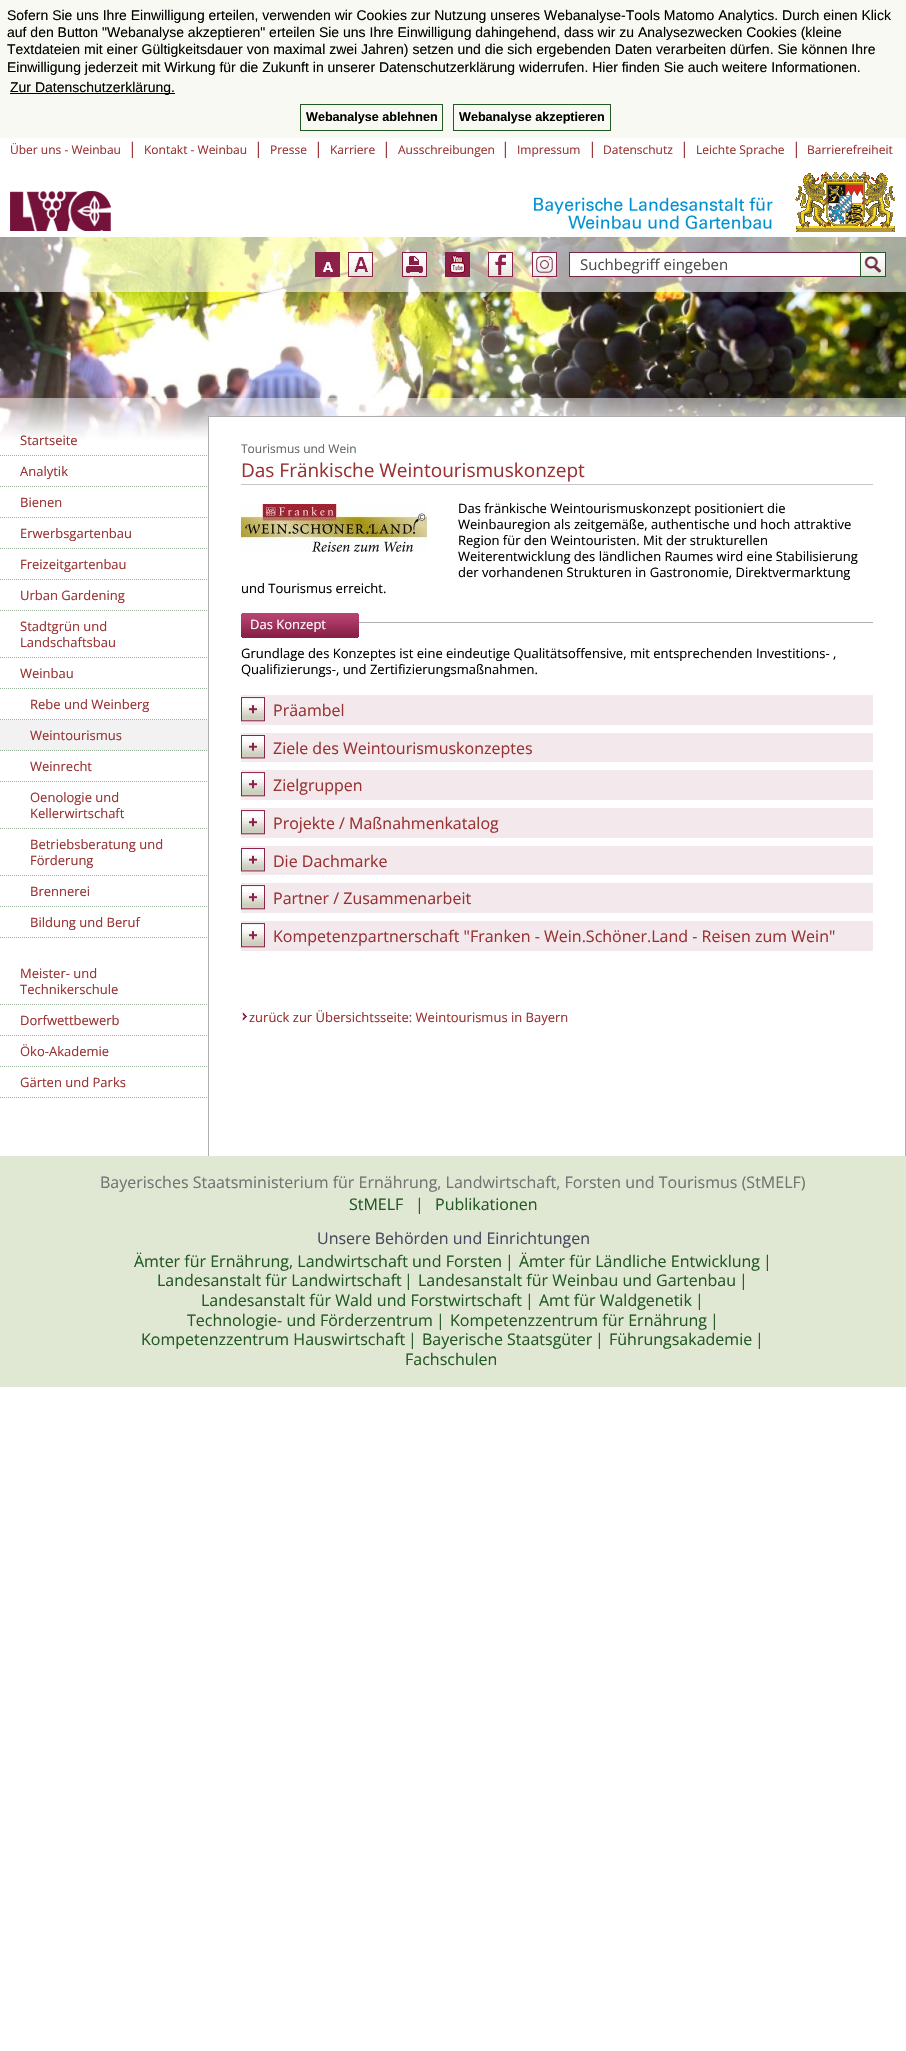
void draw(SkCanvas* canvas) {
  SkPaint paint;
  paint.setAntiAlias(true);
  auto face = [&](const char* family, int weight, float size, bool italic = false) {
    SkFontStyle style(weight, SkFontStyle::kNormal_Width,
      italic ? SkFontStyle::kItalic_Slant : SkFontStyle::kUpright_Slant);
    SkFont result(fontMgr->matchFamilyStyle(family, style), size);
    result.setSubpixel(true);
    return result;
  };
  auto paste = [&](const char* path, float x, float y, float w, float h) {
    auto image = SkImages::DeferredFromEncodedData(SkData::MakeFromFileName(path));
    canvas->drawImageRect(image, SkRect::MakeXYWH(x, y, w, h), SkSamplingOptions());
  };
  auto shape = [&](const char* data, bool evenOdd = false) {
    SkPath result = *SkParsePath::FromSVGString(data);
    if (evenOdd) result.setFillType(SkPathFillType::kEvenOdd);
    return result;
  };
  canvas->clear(0xffffffff);
  paint.setColor(0xfff7f9f2);
  canvas->drawRect(SkRect::MakeXYWH(0, 0, 906, 138), paint);
  paint.setColor(0xff000000);
  canvas->drawRect(SkRect::MakeXYWH(10, 93, 165, 1), paint);
  paint.setStroke(true);
  paint.setStrokeWidth(1);
  paint.setColor(0xff235a23);
  canvas->drawRect(SkRect::MakeXYWH(300.5f, 104.5f, 142, 26), paint);
  canvas->drawRect(SkRect::MakeXYWH(453.5f, 104.5f, 157, 26), paint);
  paste("img/1.png", 10, 191, 101, 40);
  paste("img/2.png", 534, 197, 239, 32);
  paste("img/3.png", 795, 172, 100, 60);
  paste("img/4.png", 0, 237, 906, 203);
  paint.setStroke(false);
  paint.setColor(0x99ffffff);
  canvas->drawRect(SkRect::MakeXYWH(0, 237, 906, 55), paint);
  paste("img/5.png", 315, 252, 25, 25);
  paste("img/6.png", 348, 252, 25, 25);
  paste("img/7.png", 402, 252, 25, 25);
  paste("img/8.png", 445, 252, 25, 25);
  paste("img/9.png", 488, 252, 25, 25);
  paste("img/10.png", 532, 252, 25, 25);
  paint.setColor(0xffffffff);
  canvas->drawRect(SkRect::MakeXYWH(570, 253, 290, 23), paint);
  paint.setStroke(true);
  paint.setColor(0xff772548);
  canvas->drawRect(SkRect::MakeXYWH(569.5f, 252.5f, 316, 24), paint);
  paint.setStroke(false);
  {
    const struct { float x, y, w, h; SkColor color; } items[] = {
      {861, 253, 24, 3, 0xffffffff},
      {860, 252, 25, 1, 0xff235a23},
      {860, 276, 25, 1, 0xff235a23},
      {860, 252, 1, 25, 0xff235a23},
    };
    for (auto [x, y, w, h, color] : items) {
      paint.setColor(color);
      canvas->drawRect(SkRect::MakeXYWH(x, y, w, h), paint);
    }
  }
  paste("img/11.png", 861, 256, 24, 20);
  paste("img/12.png", 0, 398, 906, 42);
  paint.setStroke(true);
  paint.setColor(0xff99b299);
  paint.setPathEffect(SkDashPathEffect::Make({{1, 1}}, 0));
  canvas->drawPath(shape("M0 455.5H208"), paint);
  paint.setPathEffect(nullptr);
  paint.setPathEffect(SkDashPathEffect::Make({{1, 1}}, 0));
  canvas->drawPath(shape("M0 486.5H208"), paint);
  paint.setPathEffect(nullptr);
  paint.setPathEffect(SkDashPathEffect::Make({{1, 1}}, 0));
  canvas->drawPath(shape("M0 517.5H208"), paint);
  paint.setPathEffect(nullptr);
  paint.setPathEffect(SkDashPathEffect::Make({{1, 1}}, 0));
  canvas->drawPath(shape("M0 548.5H208"), paint);
  paint.setPathEffect(nullptr);
  paint.setPathEffect(SkDashPathEffect::Make({{1, 1}}, 0));
  canvas->drawPath(shape("M0 579.5H208"), paint);
  paint.setPathEffect(nullptr);
  paint.setPathEffect(SkDashPathEffect::Make({{1, 1}}, 0));
  canvas->drawPath(shape("M0 610.5H208"), paint);
  paint.setPathEffect(nullptr);
  paint.setPathEffect(SkDashPathEffect::Make({{1, 1}}, 0));
  canvas->drawPath(shape("M0 657.5H208"), paint);
  paint.setPathEffect(nullptr);
  paint.setPathEffect(SkDashPathEffect::Make({{1, 1}}, 0));
  canvas->drawPath(shape("M0 688.5H208"), paint);
  paint.setPathEffect(nullptr);
  paint.setPathEffect(SkDashPathEffect::Make({{1, 1}}, 0));
  canvas->drawPath(shape("M0 719.5H208"), paint);
  paint.setPathEffect(nullptr);
  paint.setStroke(false);
  paint.setColor(0xfff2f2f2);
  canvas->drawRect(SkRect::MakeXYWH(0, 720, 208, 31), paint);
  paint.setStroke(true);
  paint.setColor(0xff99b299);
  paint.setPathEffect(SkDashPathEffect::Make({{1, 1}}, 0));
  canvas->drawPath(shape("M0 750.5H208"), paint);
  paint.setPathEffect(nullptr);
  paint.setPathEffect(SkDashPathEffect::Make({{1, 1}}, 0));
  canvas->drawPath(shape("M0 781.5H208"), paint);
  paint.setPathEffect(nullptr);
  paint.setPathEffect(SkDashPathEffect::Make({{1, 1}}, 0));
  canvas->drawPath(shape("M0 828.5H208"), paint);
  paint.setPathEffect(nullptr);
  paint.setPathEffect(SkDashPathEffect::Make({{1, 1}}, 0));
  canvas->drawPath(shape("M0 875.5H208"), paint);
  paint.setPathEffect(nullptr);
  paint.setPathEffect(SkDashPathEffect::Make({{1, 1}}, 0));
  canvas->drawPath(shape("M0 906.5H208"), paint);
  paint.setPathEffect(nullptr);
  paint.setPathEffect(SkDashPathEffect::Make({{1, 1}}, 0));
  canvas->drawPath(shape("M0 937.5H208"), paint);
  paint.setPathEffect(nullptr);
  paint.setPathEffect(SkDashPathEffect::Make({{1, 1}}, 0));
  canvas->drawPath(shape("M0 1004.5H208"), paint);
  paint.setPathEffect(nullptr);
  paint.setPathEffect(SkDashPathEffect::Make({{1, 1}}, 0));
  canvas->drawPath(shape("M0 1035.5H208"), paint);
  paint.setPathEffect(nullptr);
  paint.setPathEffect(SkDashPathEffect::Make({{1, 1}}, 0));
  canvas->drawPath(shape("M0 1066.5H208"), paint);
  paint.setPathEffect(nullptr);
  paint.setPathEffect(SkDashPathEffect::Make({{1, 1}}, 0));
  canvas->drawPath(shape("M0 1097.5H208"), paint);
  paint.setPathEffect(nullptr);
  paint.setStroke(false);
  {
    const struct { float x, y, w, h; SkColor color; } items[] = {
      {209, 417, 696, 23, 0xffffffff},
      {208, 416, 698, 1, 0xffaeaeae},
      {905, 416, 1, 690, 0xffaeaeae},
      {208, 416, 1, 690, 0xffaeaeae},
      {241, 484, 632, 1, 0xffc6c6c6},
    };
    for (auto [x, y, w, h, color] : items) {
      paint.setColor(color);
      canvas->drawRect(SkRect::MakeXYWH(x, y, w, h), paint);
    }
  }
  paste("img/13.png", 241, 504, 186, 48);
  paste("img/14.png", 241, 613, 79, 25);
  paste("img/15.png", 320, 613, 39, 25);
  paint.setColor(0xffaeaeae);
  canvas->drawRect(SkRect::MakeXYWH(359, 622, 514, 1), paint);
  paint.setColor(0xfff3e8ec);
  canvas->drawRect(SkRect::MakeXYWH(241, 695, 632, 30), paint);
  paste("img/16.png", 241, 697, 24, 25);
  canvas->drawRect(SkRect::MakeXYWH(241, 733, 632, 29), paint);
  paste("img/17.png", 241, 735, 24, 24);
  canvas->drawRect(SkRect::MakeXYWH(241, 770, 632, 30), paint);
  paste("img/16.png", 241, 772, 24, 25);
  canvas->drawRect(SkRect::MakeXYWH(241, 808, 632, 30), paint);
  paste("img/16.png", 241, 810, 24, 25);
  canvas->drawRect(SkRect::MakeXYWH(241, 846, 632, 29), paint);
  paste("img/17.png", 241, 848, 24, 24);
  canvas->drawRect(SkRect::MakeXYWH(241, 883, 632, 30), paint);
  paste("img/16.png", 241, 885, 24, 25);
  canvas->drawRect(SkRect::MakeXYWH(241, 921, 632, 30), paint);
  paste("img/16.png", 241, 923, 24, 25);
  paste("img/18.png", 242, 1012, 6, 9);
  {
    const struct { float x, y, w, h; SkColor color; } items[] = {
      {905, 1106, 1, 50, 0xffaeaeae},
      {208, 1106, 1, 50, 0xffaeaeae},
      {0, 1156, 906, 231, 0xffe0e8d4},
    };
    for (auto [x, y, w, h, color] : items) {
      paint.setColor(color);
      canvas->drawRect(SkRect::MakeXYWH(x, y, w, h), paint);
    }
  }
  auto f0 = face("Liberation Sans", 400, 14);
  paint.setColor(0xff000000);
  {
    const struct { const char* s; float x, y; } items[] = {
      {"Sofern Sie uns Ihre Einwilligung erteilen, verwenden wir Cookies zur Nutzung unseres Webanalyse-Tools Matomo Analytics. Durch einen Klick", 7, 20},
      {"auf den Button \"Webanalyse akzeptieren\" erteilen Sie uns Ihre Einwilligung dahingehend, dass wir zu Analysezwecken Cookies (kleine", 7, 37},
      {"Textdateien mit einer Gültigkeitsdauer von maximal zwei Jahren) setzen und die sich ergebenden Daten verarbeiten dürfen. Sie können Ihre", 7, 54},
      {"Einwilligung jederzeit mit Wirkung für die Zukunft in unserer Datenschutzerklärung widerrufen. Hier finden Sie auch weitere Informationen.", 7, 72},
      {"Zur Datenschutzerklärung.", 10, 92},
    };
    for (auto [s, x, y] : items) {
      canvas->drawString(s, x, y, f0, paint);
    }
  }
  auto f1 = face("Liberation Sans", 700, 12.6f);
  canvas->drawString("Webanalyse ablehnen", 306, 121, f1, paint);
  canvas->drawString("Webanalyse akzeptieren", 459, 121, f1, paint);
  auto f2 = face("Open Sans", 400, 12);
  paint.setColor(0xff993333);
  canvas->drawString("Über uns - Weinbau", 10, 154, f2, paint);
  auto f3 = face("Open Sans", 400, 16);
  canvas->drawString("|", 128, 154, f3, paint);
  canvas->drawString("Kontakt - Weinbau", 144, 154, f2, paint);
  canvas->drawString("|", 254, 154, f3, paint);
  canvas->drawString("Presse", 270, 154, f2, paint);
  canvas->drawString("|", 314, 154, f3, paint);
  canvas->drawString("Karriere", 330, 154, f2, paint);
  canvas->drawString("|", 382, 154, f3, paint);
  canvas->drawString("Ausschreibungen", 398, 154, f2, paint);
  canvas->drawString("|", 501, 154, f3, paint);
  canvas->drawString("Impressum", 517, 154, f2, paint);
  canvas->drawString("|", 588, 154, f3, paint);
  canvas->drawString("Datenschutz", 603, 154, f2, paint);
  canvas->drawString("|", 680, 154, f3, paint);
  canvas->drawString("Leichte Sprache", 696, 154, f2, paint);
  canvas->drawString("|", 792, 154, f3, paint);
  canvas->drawString("Barrierefreiheit", 807, 154, f2, paint);
  auto f4 = face("Open Sans", 400, 15);
  paint.setColor(0xff4c4c4c);
  canvas->drawString("Suchbegriff eingeben", 580, 270, f4, paint);
  auto f5 = face("Open Sans", 400, 13);
  paint.setColor(0xff993333);
  {
    const struct { const char* s; float x, y; } items[] = {
      {"Startseite", 20, 445},
      {"Analytik", 20, 476},
      {"Bienen", 20, 507},
      {"Erwerbsgartenbau", 20, 538},
      {"Freizeitgartenbau", 20, 569},
      {"Urban Gardening", 20, 600},
      {"Stadtgrün und", 20, 631},
      {"Landschaftsbau", 20, 647},
      {"Weinbau", 20, 678},
      {"Rebe und Weinberg", 30, 709},
      {"Weintourismus", 30, 740},
      {"Weinrecht", 30, 771},
      {"Oenologie und", 30, 802},
      {"Kellerwirtschaft", 30, 818},
      {"Betriebsberatung und", 30, 849},
      {"Förderung", 30, 865},
      {"Brennerei", 30, 896},
      {"Bildung und Beruf", 30, 927},
      {"Meister- und", 20, 978},
      {"Technikerschule", 20, 994},
      {"Dorfwettbewerb", 20, 1025},
      {"Öko-Akademie", 20, 1056},
      {"Gärten und Parks", 20, 1087},
    };
    for (auto [s, x, y] : items) {
      canvas->drawString(s, x, y, f5, paint);
    }
  }
  paint.setColor(0xff666666);
  canvas->drawString("Tourismus und Wein", 241, 453, f2, paint);
  auto f6 = face("Open Sans", 400, 19);
  paint.setColor(0xff993333);
  canvas->drawString("Das Fränkische Weintourismuskonzept", 241, 477, f6, paint);
  paint.setColor(0xff000000);
  {
    const struct { const char* s; float x, y; } items[] = {
      {"Das fränkische Weintourismuskonzept positioniert die", 458, 513},
      {"Weinbauregion als zeitgemäße, authentische und hoch attraktive", 458, 529},
      {"Region für den Weintouristen. Mit der strukturellen", 458, 545},
      {"Weiterentwicklung des ländlichen Raumes wird eine Stabilisierung", 458, 561},
      {"der vorhandenen Strukturen in Gastronomie, Direktvermarktung", 458, 577},
      {"und Tourismus erreicht.", 241, 593},
    };
    for (auto [s, x, y] : items) {
      canvas->drawString(s, x, y, f5, paint);
    }
  }
  paint.setColor(0xffffffff);
  canvas->drawString("Das Konzept", 250, 629, f5, paint);
  paint.setColor(0xff000000);
  canvas->drawString("Grundlage des Konzeptes ist eine eindeutige Qualitätsoffensive, mit entsprechenden Investitions- ,", 241, 658, f5, paint);
  canvas->drawString("Qualifizierungs-, und Zertifizierungsmaßnahmen.", 241, 674, f5, paint);
  paint.setColor(0xff993333);
  {
    const struct { const char* s; float x, y; } items[] = {
      {"Präambel", 273, 716},
      {"Ziele des Weintourismuskonzeptes", 273, 754},
      {"Zielgruppen", 273, 791},
      {"Projekte / Maßnahmenkatalog", 273, 829},
      {"Die Dachmarke", 273, 867},
      {"Partner / Zusammenarbeit", 273, 904},
      {"Kompetenzpartnerschaft \"Franken - Wein.Schöner.Land - Reisen zum Wein\"", 273, 942},
    };
    for (auto [s, x, y] : items) {
      canvas->drawString(s, x, y, f3, paint);
    }
  }
  canvas->drawString("zurück zur Übersichtsseite: Weintourismus in Bayern", 249, 1022, f5, paint);
  paint.setColor(0xff737373);
  canvas->drawString("Bayerisches Staatsministerium für Ernährung, Landwirtschaft, Forsten und Tourismus (StMELF)", 100, 1188, f3, paint);
  paint.setColor(0xff235a23);
  {
    const struct { const char* s; float x, y; } items[] = {
      {"StMELF", 349, 1210},
      {"|", 415, 1210},
      {"Publikationen", 435, 1210},
    };
    for (auto [s, x, y] : items) {
      canvas->drawString(s, x, y, f3, paint);
    }
  }
  paint.setColor(0xff47485e);
  canvas->drawString("Unsere Behörden und Einrichtungen", 317, 1244, f3, paint);
  paint.setColor(0xff235a23);
  {
    const struct { const char* s; float x, y; } items[] = {
      {"Ämter für Ernährung, Landwirtschaft und Forsten", 134, 1267},
      {"|", 505, 1267},
      {"Ämter für Ländliche Entwicklung", 519, 1267},
      {"|", 763, 1267},
      {"Landesanstalt für Landwirtschaft", 157, 1286},
      {"|", 404, 1286},
      {"Landesanstalt für Weinbau und Gartenbau", 418, 1286},
      {"|", 739, 1286},
      {"Landesanstalt für Wald und Forstwirtschaft", 201, 1306},
      {"|", 525, 1306},
      {"Amt für Waldgenetik", 539, 1306},
      {"|", 695, 1306},
      {"Technologie- und Förderzentrum", 187, 1326},
      {"|", 436, 1326},
      {"Kompetenzzentrum für Ernährung", 450, 1326},
      {"|", 710, 1326},
      {"Kompetenzzentrum Hauswirtschaft", 141, 1345},
      {"|", 408, 1345},
      {"Bayerische Staatsgüter", 422, 1345},
      {"|", 595, 1345},
      {"Führungsakademie", 609, 1345},
      {"|", 755, 1345},
      {"Fachschulen", 405, 1365},
    };
    for (auto [s, x, y] : items) {
      canvas->drawString(s, x, y, f3, paint);
    }
  }
}
